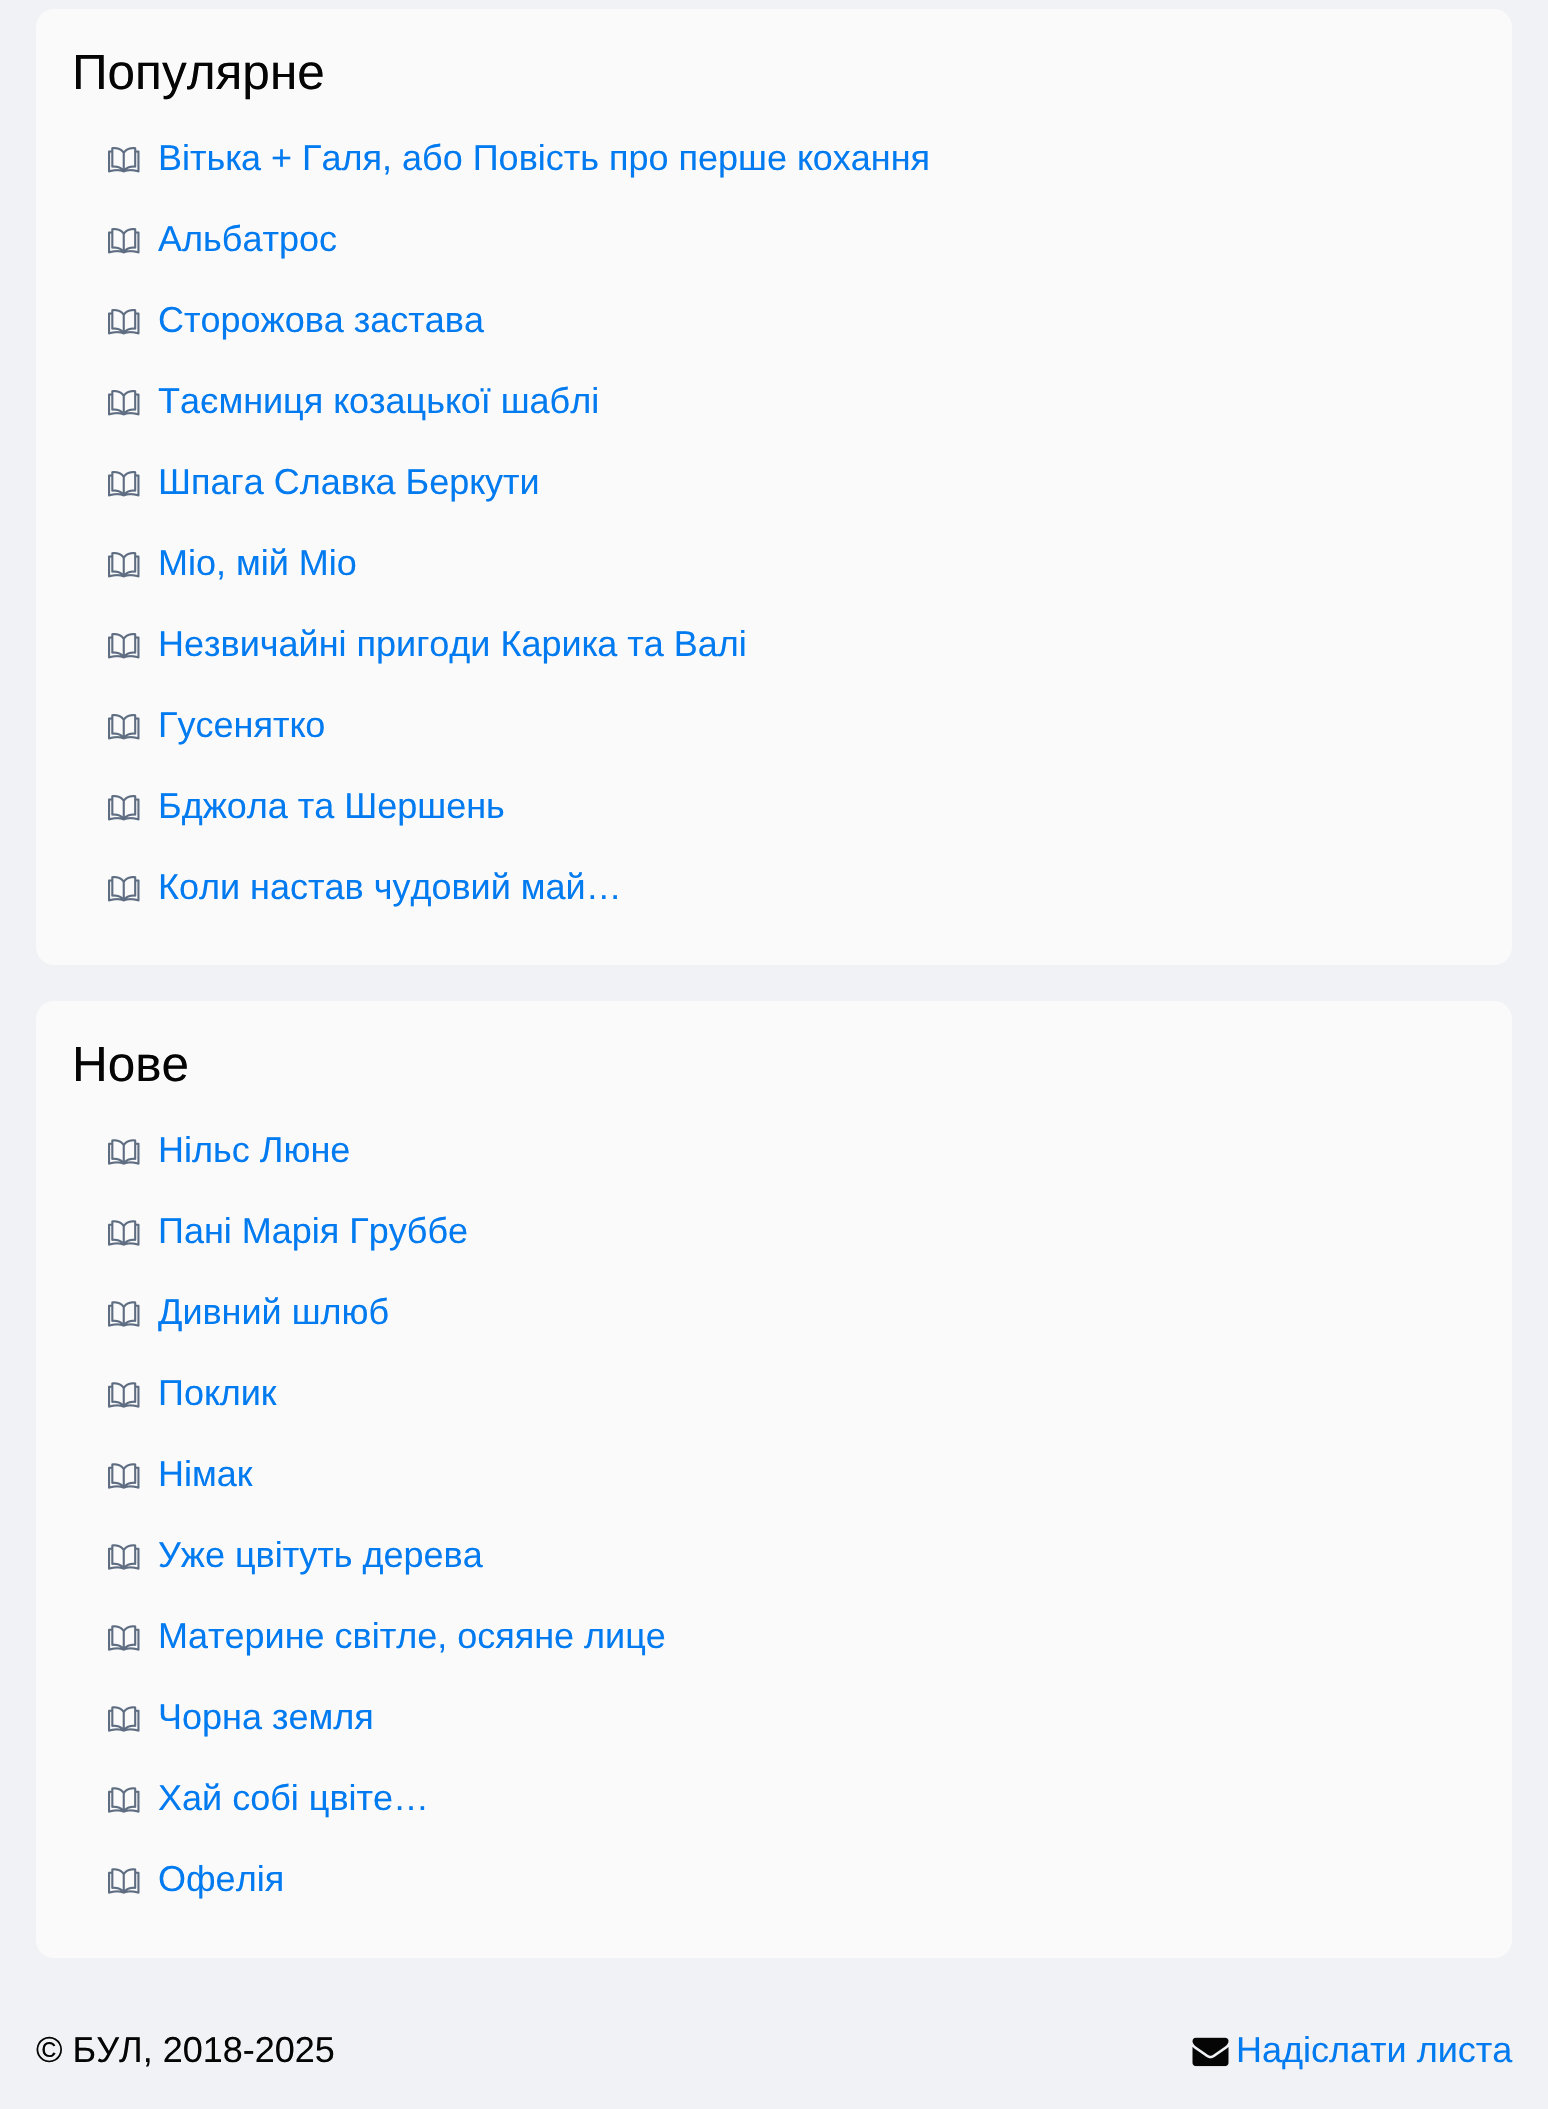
void draw(SkCanvas* canvas) {
  SkPaint paint;
  paint.setAntiAlias(true);
  auto face = [&](const char* family, int weight, float size, bool italic = false) {
    SkFontStyle style(weight, SkFontStyle::kNormal_Width,
      italic ? SkFontStyle::kItalic_Slant : SkFontStyle::kUpright_Slant);
    SkFont result(fontMgr->matchFamilyStyle(family, style), size);
    result.setSubpixel(true);
    return result;
  };
  auto paste = [&](const char* path, float x, float y, float w, float h) {
    auto image = SkImages::DeferredFromEncodedData(SkData::MakeFromFileName(path));
    canvas->drawImageRect(image, SkRect::MakeXYWH(x, y, w, h), SkSamplingOptions());
  };
  canvas->clear(0xfff0f2f5);
  paint.setColor(0xfffafafa);
  canvas->drawRoundRect(SkRect::MakeXYWH(36, 9, 1476, 956), 18, 18, paint);
  paste("img/1.png", 108, 147, 32, 26);
  paste("img/1.png", 108, 228, 32, 26);
  paste("img/1.png", 108, 309, 32, 26);
  paste("img/1.png", 108, 390, 32, 26);
  paste("img/1.png", 108, 471, 32, 26);
  paste("img/1.png", 108, 552, 32, 26);
  paste("img/1.png", 108, 633, 32, 26);
  paste("img/1.png", 108, 714, 32, 26);
  paste("img/1.png", 108, 795, 32, 26);
  paste("img/1.png", 108, 876, 32, 26);
  canvas->drawRoundRect(SkRect::MakeXYWH(36, 1001, 1476, 957), 18, 18, paint);
  paste("img/2.png", 108, 1139, 32, 26);
  paste("img/2.png", 108, 1220, 32, 26);
  paste("img/2.png", 108, 1301, 32, 26);
  paste("img/2.png", 108, 1382, 32, 26);
  paste("img/2.png", 108, 1463, 32, 26);
  paste("img/2.png", 108, 1544, 32, 26);
  paste("img/2.png", 108, 1625, 32, 26);
  paste("img/2.png", 108, 1706, 32, 26);
  paste("img/2.png", 108, 1787, 32, 26);
  paste("img/2.png", 108, 1868, 32, 26);
  paste("img/3.png", 1192, 2037, 37, 30);
  auto f0 = face("Liberation Sans", 400, 49.5f);
  paint.setColor(0xff050505);
  canvas->drawString("Популярне", 72, 89, f0, paint);
  auto f1 = face("Liberation Sans", 400, 36);
  paint.setColor(0xff027af0);
  {
    const struct { const char* s; float x, y; } items[] = {
      {"Вітька + Галя, або Повість про перше кохання", 158, 170},
      {"Альбатрос", 158, 251},
      {"Сторожова застава", 158, 332},
      {"Таємниця козацької шаблі", 158, 413},
      {"Шпага Славка Беркути", 158, 494},
      {"Міо, мій Міо", 158, 575},
      {"Незвичайні пригоди Карика та Валі", 158, 656},
      {"Гусенятко", 158, 737},
      {"Бджола та Шершень", 158, 818},
      {"Коли настав чудовий май…", 158, 899},
    };
    for (auto [s, x, y] : items) {
      canvas->drawString(s, x, y, f1, paint);
    }
  }
  paint.setColor(0xff050505);
  canvas->drawString("Нове", 72, 1081, f0, paint);
  paint.setColor(0xff027af0);
  {
    const struct { const char* s; float x, y; } items[] = {
      {"Нільс Люне", 158, 1162},
      {"Пані Марія Груббе", 158, 1243},
      {"Дивний шлюб", 158, 1324},
      {"Поклик", 158, 1405},
      {"Німак", 158, 1486},
      {"Уже цвітуть дерева", 158, 1567},
      {"Материне світле, осяяне лице", 158, 1648},
      {"Чорна земля", 158, 1729},
      {"Хай собі цвіте…", 158, 1810},
      {"Офелія", 158, 1891},
    };
    for (auto [s, x, y] : items) {
      canvas->drawString(s, x, y, f1, paint);
    }
  }
  paint.setColor(0xff050505);
  canvas->drawString("© БУЛ, 2018-2025", 36, 2062, f1, paint);
  paint.setColor(0xff027af0);
  canvas->drawString("Надіслати листа", 1236, 2062, f1, paint);
}
